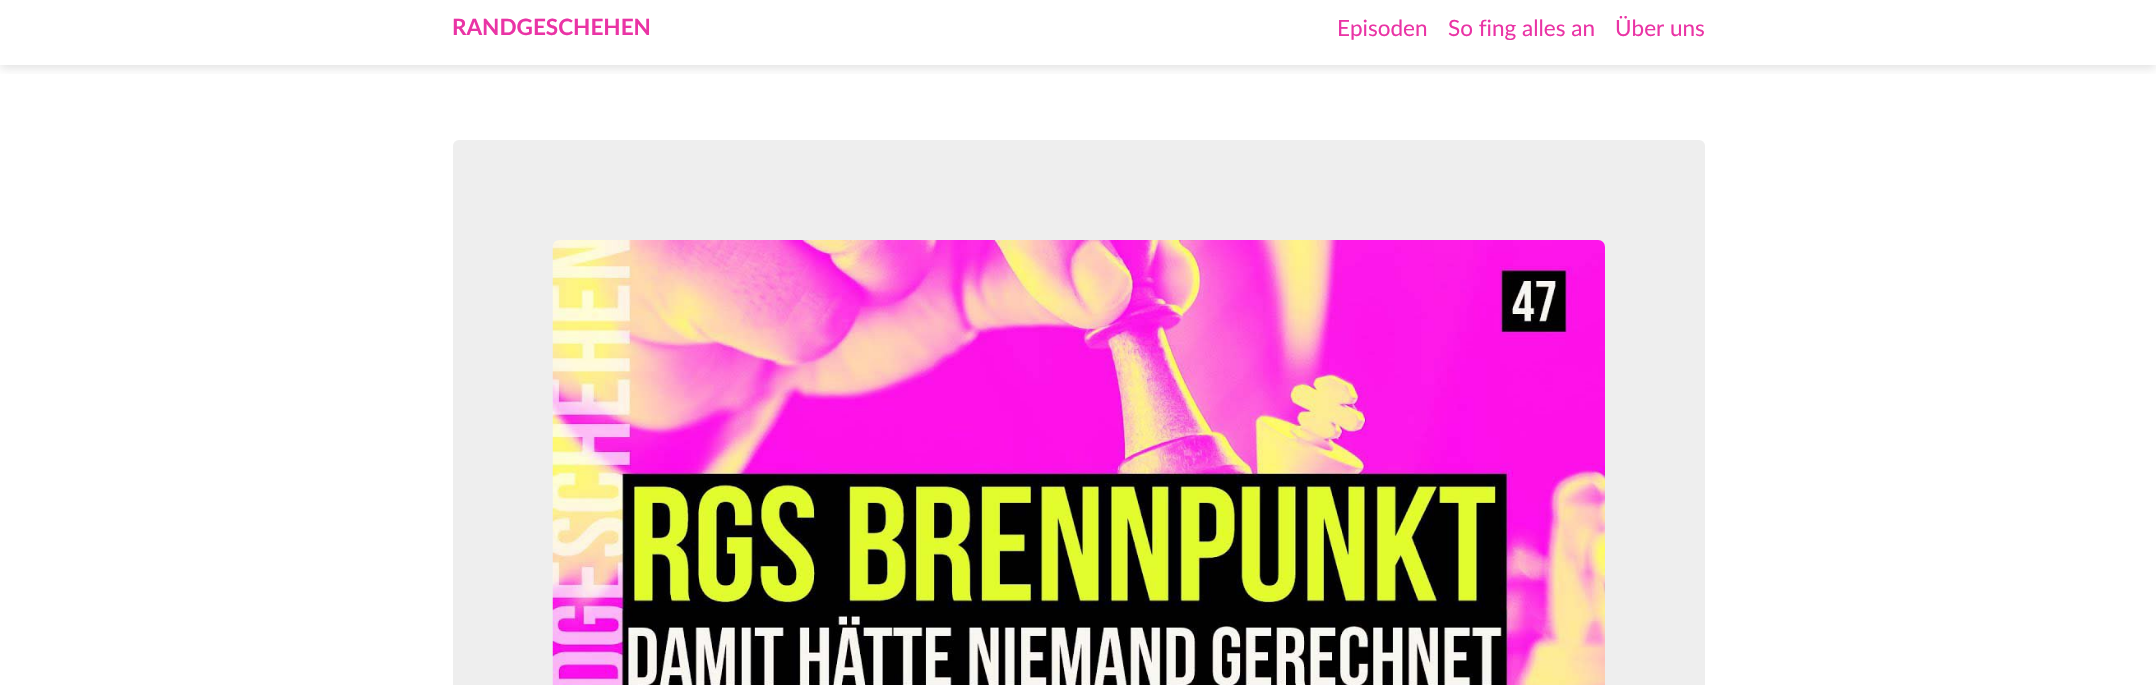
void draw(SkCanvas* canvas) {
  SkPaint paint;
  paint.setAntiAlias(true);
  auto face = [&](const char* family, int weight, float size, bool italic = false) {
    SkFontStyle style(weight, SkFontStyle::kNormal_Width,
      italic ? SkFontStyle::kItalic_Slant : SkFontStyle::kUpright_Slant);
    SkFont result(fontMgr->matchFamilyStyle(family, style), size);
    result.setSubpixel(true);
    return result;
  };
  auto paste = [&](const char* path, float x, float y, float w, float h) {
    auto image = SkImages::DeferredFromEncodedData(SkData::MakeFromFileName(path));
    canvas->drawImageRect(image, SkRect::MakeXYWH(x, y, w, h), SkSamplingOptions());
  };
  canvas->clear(0xffffffff);
  canvas->save();
  canvas->clipRect(SkRect::MakeXYWH(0, 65, 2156, 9));
  paint.setColor(0x33636363);
  paint.setMaskFilter(SkMaskFilter::MakeBlur(kNormal_SkBlurStyle, 5));
  canvas->drawRect(SkRect::MakeXYWH(0, 3, 2156, 65), paint);
  paint.setMaskFilter(nullptr);
  canvas->restore();
  paint.setColor(0xffeeeeee);
  canvas->drawRoundRect(SkRect::MakeXYWH(453, 140, 1252, 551), 6, 6, paint);
  paste("img/1.png", 552, 240, 1053, 445);
  auto f0 = face("Lato", 700, 22.5f);
  paint.setColor(0xffea34a5);
  canvas->drawString("RANDGESCHEHEN", 452, 35, f0, paint);
  auto f1 = face("Lato", 400, 22.5f);
  {
    const struct { const char* s; float x, y; } items[] = {
      {"Episoden", 1337, 36},
      {"So fing alles an", 1448, 36},
      {"Über uns", 1615, 36},
    };
    for (auto [s, x, y] : items) {
      canvas->drawString(s, x, y, f1, paint);
    }
  }
}
